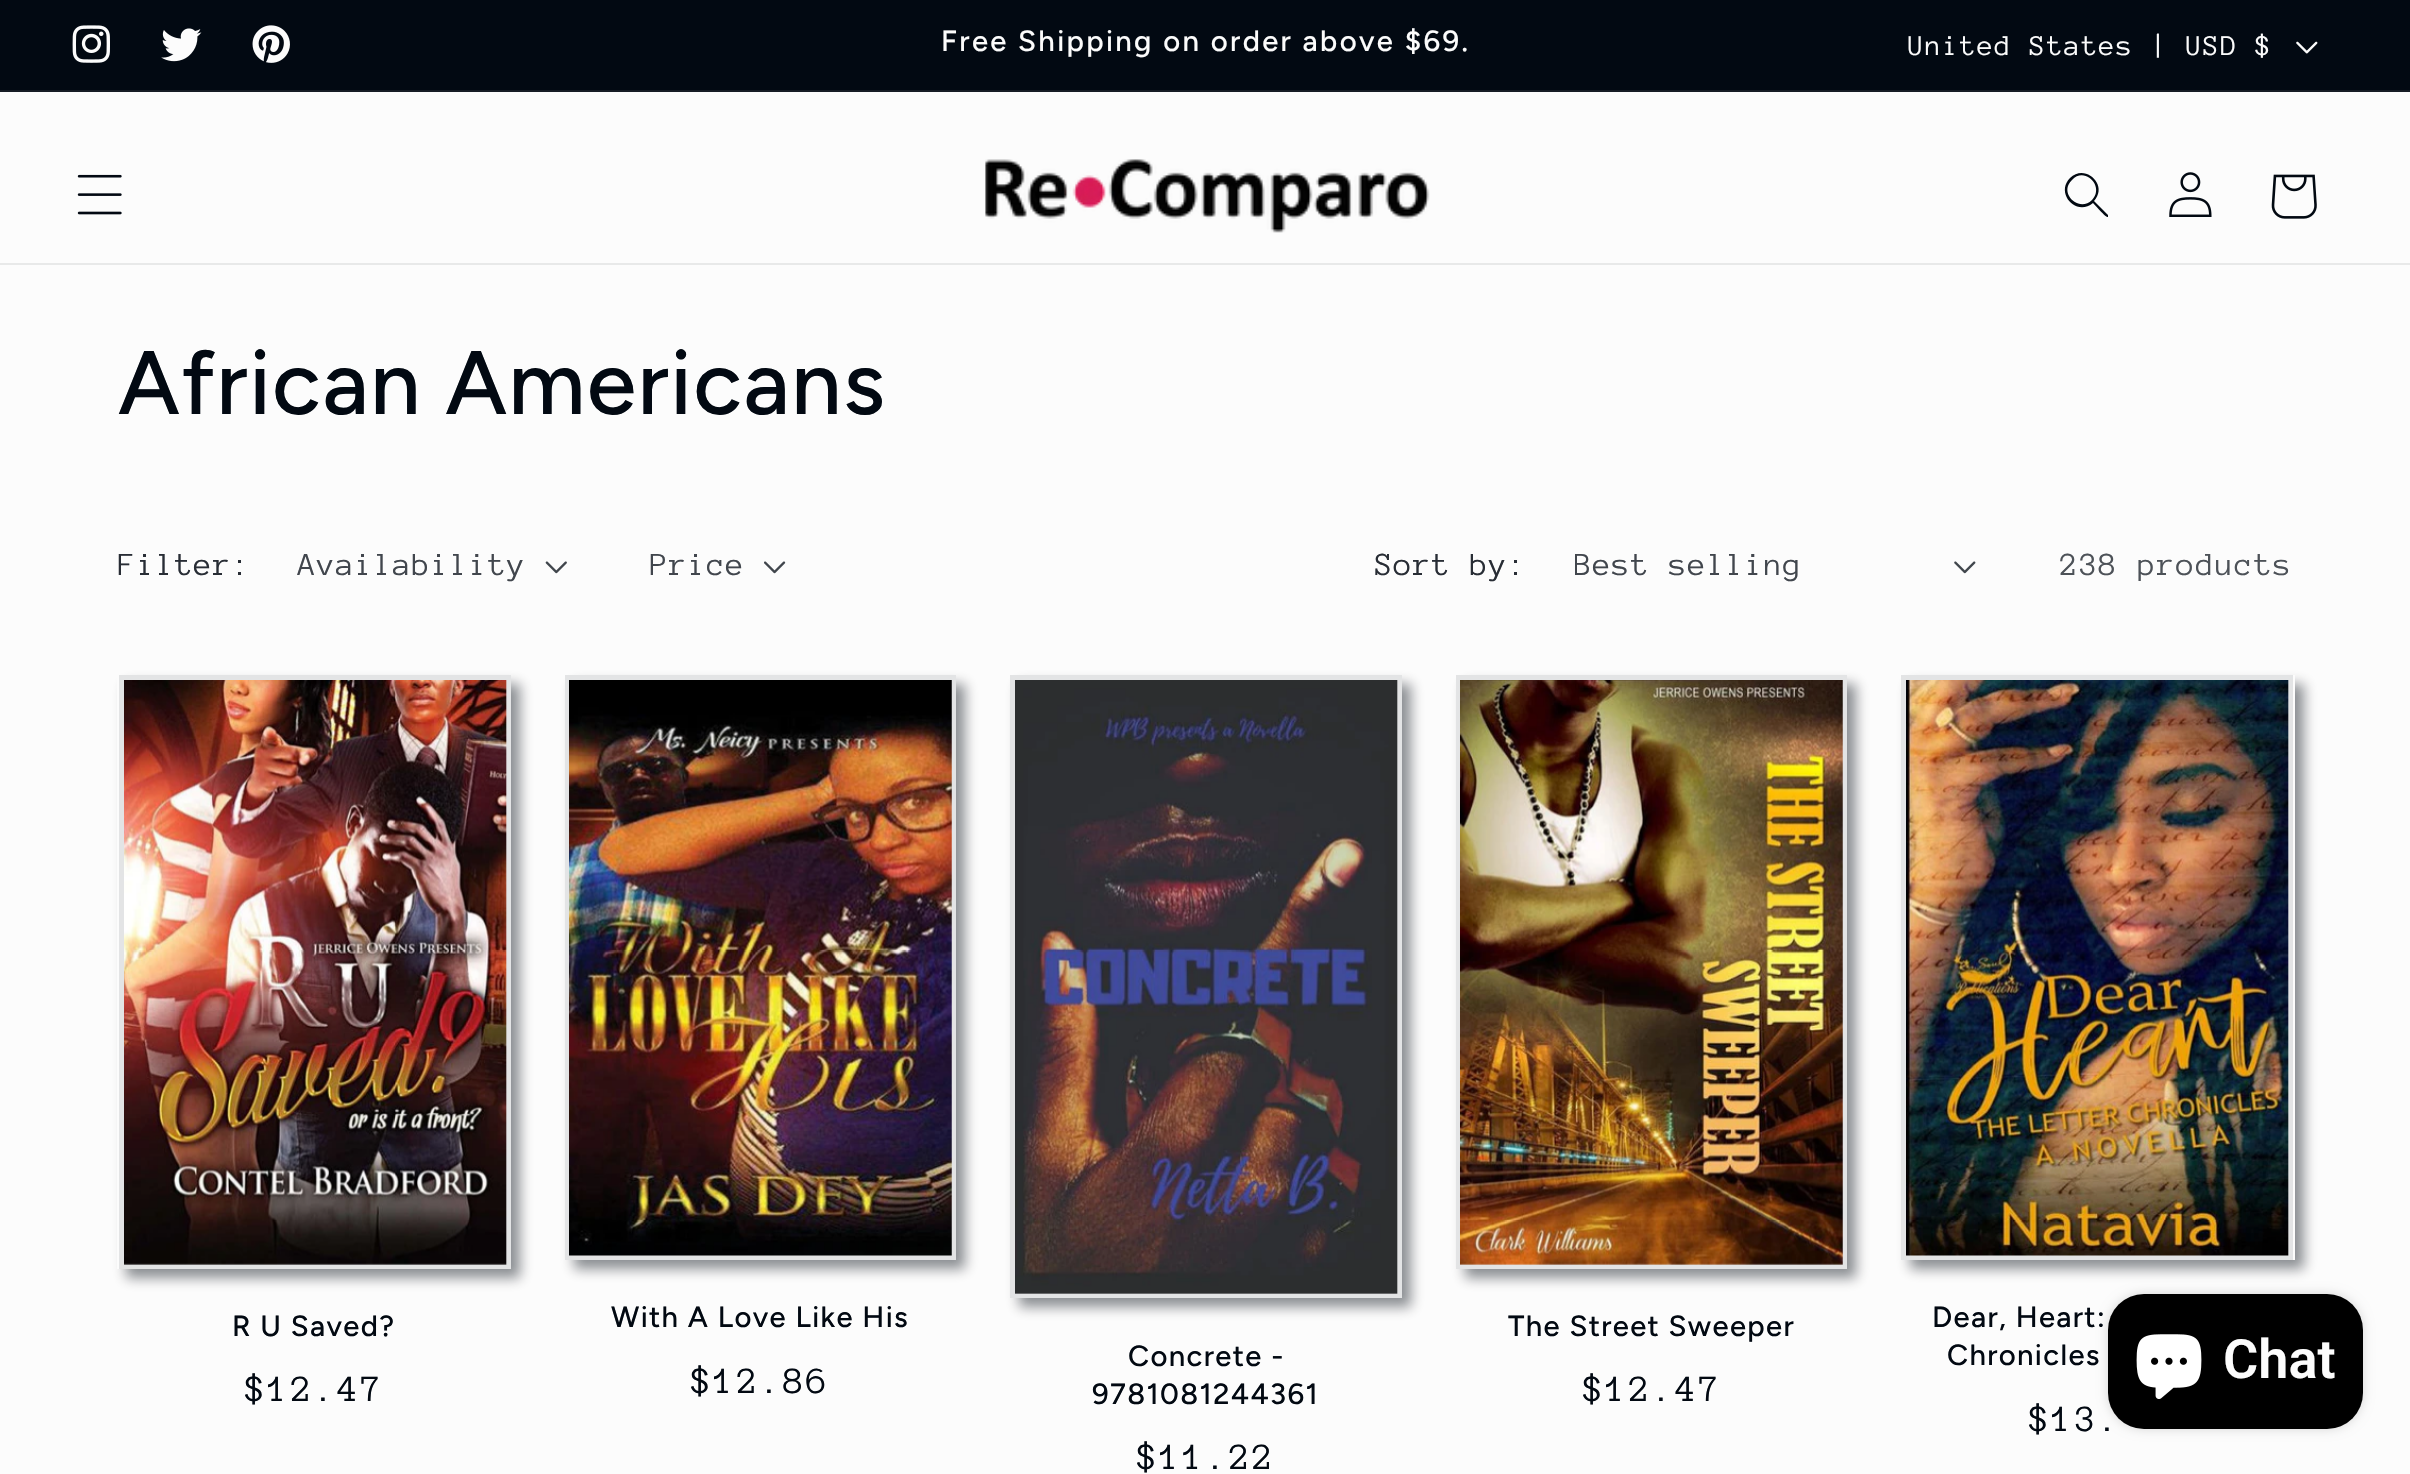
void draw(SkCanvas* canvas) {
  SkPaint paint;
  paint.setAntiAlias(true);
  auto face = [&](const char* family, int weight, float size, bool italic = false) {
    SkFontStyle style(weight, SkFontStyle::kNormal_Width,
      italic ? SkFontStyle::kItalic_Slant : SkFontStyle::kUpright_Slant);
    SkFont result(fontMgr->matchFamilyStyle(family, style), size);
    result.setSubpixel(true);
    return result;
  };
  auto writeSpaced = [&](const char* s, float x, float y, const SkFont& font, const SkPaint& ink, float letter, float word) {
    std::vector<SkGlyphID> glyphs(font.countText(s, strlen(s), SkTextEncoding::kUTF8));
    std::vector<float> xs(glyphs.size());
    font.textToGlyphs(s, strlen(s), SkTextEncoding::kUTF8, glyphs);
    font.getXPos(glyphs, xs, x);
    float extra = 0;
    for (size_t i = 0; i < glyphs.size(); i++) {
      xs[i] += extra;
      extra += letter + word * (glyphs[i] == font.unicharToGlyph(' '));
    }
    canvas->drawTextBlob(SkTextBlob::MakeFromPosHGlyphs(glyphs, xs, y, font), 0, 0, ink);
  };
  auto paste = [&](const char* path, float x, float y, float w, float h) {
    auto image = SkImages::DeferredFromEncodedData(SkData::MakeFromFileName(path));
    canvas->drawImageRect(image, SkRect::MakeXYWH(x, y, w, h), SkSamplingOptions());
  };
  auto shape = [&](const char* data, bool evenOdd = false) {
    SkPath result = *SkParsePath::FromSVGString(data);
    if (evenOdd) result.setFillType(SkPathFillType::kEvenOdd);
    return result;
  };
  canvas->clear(0xfffcfcfc);
  paint.setColor(0xff020912);
  canvas->drawRect(SkRect::MakeXYWH(0, 0, 2410, 90), paint);
  paint.setColor(0xff161c25);
  canvas->drawRect(SkRect::MakeXYWH(0, 90, 2410, 2), paint);
  paste("img/1.png", 72, 25, 38, 38);
  paste("img/2.png", 161, 28, 41, 34);
  paste("img/3.png", 252, 25, 38, 38);
  paste("img/4.png", 2296, 41, 22, 13);
  paint.setColor(0xffe8e9e9);
  canvas->drawRect(SkRect::MakeXYWH(0, 263, 2410, 2), paint);
  paste("img/5.png", 77, 174, 45, 41);
  paste("img/6.png", 985, 159, 445, 74);
  paint.setColor(0xff020912);
  canvas->drawPath(shape("M2092 200C2079 213 2058 193 2072 180C2085 166 2105 187 2092 200ZM2093 203C2076 217 2055 193 2070 178C2085 163 2109 185 2094 201L2108 215V217C2106 218 2095 205 2093 203Z", true), paint);
  paste("img/7.png", 2169, 172, 43, 45);
  paste("img/8.png", 2271, 174, 46, 45);
  paste("img/9.png", 545, 561, 22, 13);
  paste("img/10.png", 764, 561, 22, 13);
  paste("img/11.png", 1954, 561, 22, 13);
  paint.setStroke(true);
  paint.setStrokeWidth(5);
  paint.setColor(0xffe3e4e5);
  canvas->drawRect(SkRect::MakeXYWH(121.5f, 677.5f, 387, 589), paint);
  canvas->save();
  canvas->clipPath(shape("M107 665H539V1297H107ZM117 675H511V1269H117Z", true), true);
  paint.setStroke(false);
  paint.setColor(0x73020912);
  paint.setMaskFilter(SkMaskFilter::MakeBlur(kNormal_SkBlurStyle, 6));
  canvas->drawRect(SkRect::MakeXYWH(126, 684, 394, 594), paint);
  paint.setMaskFilter(nullptr);
  canvas->restore();
  paste("img/12.png", 124, 680, 383, 585);
  paint.setStroke(true);
  paint.setColor(0xffe3e4e5);
  canvas->drawRect(SkRect::MakeXYWH(567.5f, 677.5f, 386, 580), paint);
  canvas->save();
  canvas->clipPath(shape("M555 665H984V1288H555ZM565 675H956V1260H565Z", true), true);
  paint.setStroke(false);
  paint.setColor(0x73020912);
  paint.setMaskFilter(SkMaskFilter::MakeBlur(kNormal_SkBlurStyle, 6));
  canvas->drawRect(SkRect::MakeXYWH(574, 684, 391, 585), paint);
  paint.setMaskFilter(nullptr);
  canvas->restore();
  paste("img/13.png", 569, 680, 383, 576);
  paint.setStroke(true);
  paint.setColor(0xffe3e4e5);
  canvas->drawRect(SkRect::MakeXYWH(1012.5f, 677.5f, 387, 618), paint);
  canvas->save();
  canvas->clipPath(shape("M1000 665H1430V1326H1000ZM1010 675H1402V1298H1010Z", true), true);
  paint.setStroke(false);
  paint.setColor(0x73020912);
  paint.setMaskFilter(SkMaskFilter::MakeBlur(kNormal_SkBlurStyle, 6));
  canvas->drawRect(SkRect::MakeXYWH(1019, 684, 392, 623), paint);
  paint.setMaskFilter(nullptr);
  canvas->restore();
  paste("img/14.png", 1015, 680, 383, 614);
  paint.setStroke(true);
  paint.setColor(0xffe3e4e5);
  canvas->drawRect(SkRect::MakeXYWH(1458.5f, 677.5f, 386, 589), paint);
  canvas->save();
  canvas->clipPath(shape("M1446 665H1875V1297H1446ZM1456 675H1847V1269H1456Z", true), true);
  paint.setStroke(false);
  paint.setColor(0x73020912);
  paint.setMaskFilter(SkMaskFilter::MakeBlur(kNormal_SkBlurStyle, 6));
  canvas->drawRect(SkRect::MakeXYWH(1465, 684, 391, 594), paint);
  paint.setMaskFilter(nullptr);
  canvas->restore();
  paste("img/15.png", 1460, 680, 383, 585);
  paint.setStroke(true);
  paint.setColor(0xffe3e4e5);
  canvas->drawRect(SkRect::MakeXYWH(1903.5f, 677.5f, 387, 580), paint);
  canvas->save();
  canvas->clipPath(shape("M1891 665H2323V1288H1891ZM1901 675H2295V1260H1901Z", true), true);
  paint.setStroke(false);
  paint.setColor(0x73020912);
  paint.setMaskFilter(SkMaskFilter::MakeBlur(kNormal_SkBlurStyle, 6));
  canvas->drawRect(SkRect::MakeXYWH(1910, 684, 394, 585), paint);
  paint.setMaskFilter(nullptr);
  canvas->restore();
  paste("img/16.png", 1906, 680, 383, 576);
  paint.setColor(0x26000000);
  paint.setMaskFilter(SkMaskFilter::MakeBlur(kNormal_SkBlurStyle, 5.5f));
  canvas->drawRoundRect(SkRect::MakeXYWH(2108, 1294, 255, 135), 36, 36, paint);
  paint.setMaskFilter(nullptr);
  auto f0 = face("Figtree", 500, 29.25f);
  paint.setColor(0xfffcfcfc);
  writeSpaced("Free Shipping on order above $69.", 941, 51, f0, paint, 2.35f, 0);
  auto f1 = face("Anonymous Pro", 400, 29.25f);
  writeSpaced("United States | USD $", 1908, 55, f1, paint, 1.4f, 0);
  auto f2 = face("Figtree", 500, 90);
  paint.setColor(0xff020912);
  writeSpaced("African Americans", 118, 414, f2, paint, 1.35f, 0);
  auto f3 = face("Anonymous Pro", 400, 33);
  paint.setColor(0xff282d35);
  writeSpaced("Filter:", 118, 575, f3, paint, 1, 0);
  paint.setColor(0xff41464d);
  writeSpaced("Availability", 298, 575, f3, paint, 1, 0);
  writeSpaced("Price", 650, 575, f3, paint, 1, 0);
  paint.setColor(0xff282d35);
  writeSpaced("Sort by:", 1375, 575, f3, paint, 1, 0);
  canvas->save();
  canvas->clipRect(SkRect::MakeXYWH(1575, 542, 362, 48));
  paint.setColor(0xff41464d);
  writeSpaced("Best selling", 1574, 575, f3, paint, 1, 0);
  canvas->restore();
  paint.setColor(0xff4d5258);
  writeSpaced("238 products", 2060, 575, f3, paint, 1.4f, 0);
  paint.setColor(0xff020912);
  writeSpaced("R U Saved?", 232, 1336, f0, paint, 1.35f, 0);
  auto f4 = face("Anonymous Pro", 400, 38);
  writeSpaced("$12.47", 245, 1401, f4, paint, 2.35f, 0);
  writeSpaced("With A Love Like His", 611, 1327, f0, paint, 1.35f, 0);
  writeSpaced("$12.86", 691, 1393, f4, paint, 2.35f, 0);
  writeSpaced("Concrete -", 1128, 1366, f0, paint, 1.35f, 0);
  writeSpaced("9781081244361", 1092, 1404, f0, paint, 1.35f, 0);
  writeSpaced("$11.22", 1137, 1469, f4, paint, 2.35f, 0);
  writeSpaced("The Street Sweeper", 1508, 1336, f0, paint, 1.35f, 0);
  writeSpaced("$12.47", 1583, 1401, f4, paint, 2.35f, 0);
  writeSpaced("Dear, Heart:", 1932, 1327, f0, paint, 1.35f, 0);
  writeSpaced("Chronicles", 1947, 1365, f0, paint, 1.35f, 0);
  writeSpaced("$13.", 2029, 1431, f4, paint, 2.35f, 0);
  paint.setColor(0xff000000);
  canvas->drawRoundRect(SkRect::MakeXYWH(2108, 1294, 255, 135), 36, 36, paint);
  paste("img/17.png", 2136, 1334, 66, 65);
  auto f5 = face("Roboto", 600, 54);
  paint.setColor(0xfffcfcfc);
  canvas->drawString("Chat", 2223, 1378, f5, paint);
}
